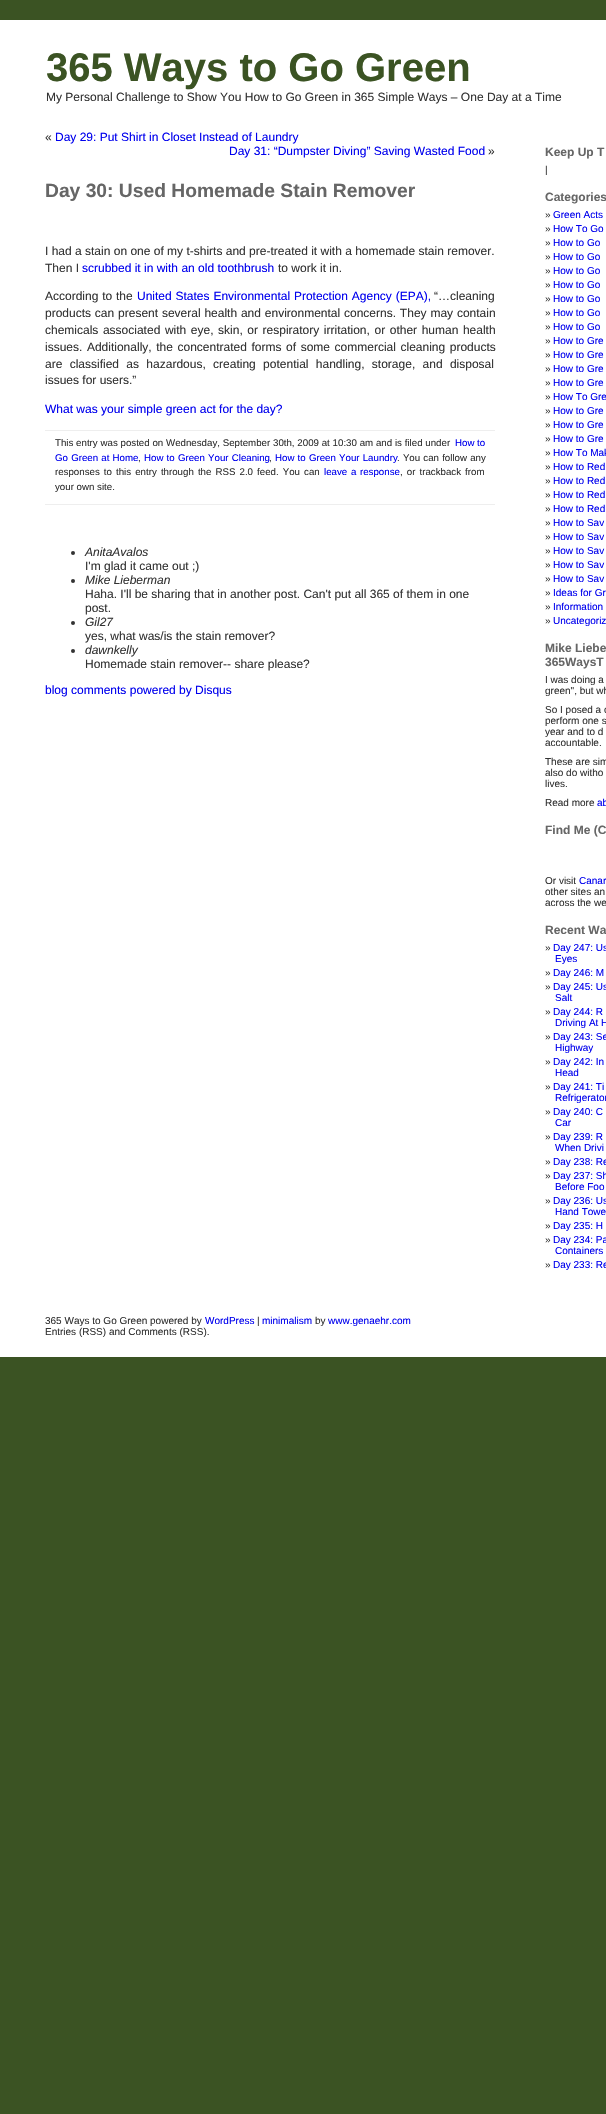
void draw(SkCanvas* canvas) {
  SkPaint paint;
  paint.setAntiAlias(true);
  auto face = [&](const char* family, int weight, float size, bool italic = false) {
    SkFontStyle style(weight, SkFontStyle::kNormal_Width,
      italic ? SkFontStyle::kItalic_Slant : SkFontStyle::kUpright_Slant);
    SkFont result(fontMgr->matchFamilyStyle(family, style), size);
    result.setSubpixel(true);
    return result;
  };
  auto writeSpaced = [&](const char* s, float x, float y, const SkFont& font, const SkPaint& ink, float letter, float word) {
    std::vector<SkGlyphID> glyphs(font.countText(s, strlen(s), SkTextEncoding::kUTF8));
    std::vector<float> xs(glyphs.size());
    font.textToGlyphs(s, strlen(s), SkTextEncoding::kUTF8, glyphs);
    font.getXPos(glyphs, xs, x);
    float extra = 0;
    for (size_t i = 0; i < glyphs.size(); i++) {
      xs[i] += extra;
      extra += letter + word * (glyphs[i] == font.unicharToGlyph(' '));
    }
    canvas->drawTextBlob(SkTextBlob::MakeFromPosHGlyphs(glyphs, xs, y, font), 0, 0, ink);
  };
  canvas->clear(0xff3b5323);
  {
    const struct { float x, y, w, h; SkColor color; } items[] = {
      {0, 20, 606, 1337, 0xffffffff},
      {45, 430, 450, 1, 0xffeeeeee},
      {45, 504, 450, 1, 0xffeeeeee},
    };
    for (auto [x, y, w, h, color] : items) {
      paint.setColor(color);
      canvas->drawRect(SkRect::MakeXYWH(x, y, w, h), paint);
    }
  }
  paint.setColor(0xff333333);
  canvas->drawCircle(73, 553, 2, paint);
  canvas->drawCircle(73, 581, 2, paint);
  canvas->drawCircle(73, 623, 2, paint);
  canvas->drawCircle(73, 651, 2, paint);
  auto f0 = face("Liberation Sans", 700, 40);
  paint.setColor(0xff3b5323);
  canvas->drawString("365 Ways to Go Green", 46, 81, f0, paint);
  auto f1 = face("Liberation Sans", 400, 12);
  paint.setColor(0xff333333);
  canvas->drawString("My Personal Challenge to Show You How to Go Green in 365 Simple Ways – One Day at a Time", 46, 101, f1, paint);
  canvas->drawString("«", 45, 141, f1, paint);
  paint.setColor(0xff0000ee);
  canvas->drawString("Day 29: Put Shirt in Closet Instead of Laundry", 55, 141, f1, paint);
  canvas->drawString("Day 31: “Dumpster Diving” Saving Wasted Food", 229, 155, f1, paint);
  paint.setColor(0xff333333);
  canvas->drawString("»", 488, 155, f1, paint);
  auto f2 = face("Liberation Sans", 700, 19.25f);
  paint.setColor(0xff666666);
  canvas->drawString("Day 30: Used Homemade Stain Remover", 45, 197, f2, paint);
  paint.setColor(0xff333333);
  canvas->drawString("I had a stain on one of my t-shirts and pre-treated it with a homemade stain remover.", 45, 255, f1, paint);
  canvas->drawString("Then I", 45, 272, f1, paint);
  paint.setColor(0xff0000ee);
  canvas->drawString("scrubbed it in with an old toothbrush", 82, 272, f1, paint);
  paint.setColor(0xff333333);
  canvas->drawString("to work it in.", 278, 272, f1, paint);
  writeSpaced("According to the", 45, 300, f1, paint, 0, 0.5f);
  paint.setColor(0xff0000ee);
  writeSpaced("United States Environmental Protection Agency (EPA),", 137, 300, f1, paint, 0, 0.5f);
  paint.setColor(0xff333333);
  canvas->drawString("“…cleaning", 434, 300, f1, paint);
  writeSpaced("products can present several health and environmental concerns. They may contain", 45, 317, f1, paint, 0, 0.5f);
  writeSpaced("chemicals associated with eye, skin, or respiratory irritation, or other human health", 45, 334, f1, paint, 0, 1.25f);
  writeSpaced("issues. Additionally, the concentrated forms of some commercial cleaning products", 45, 351, f1, paint, 0, 1.25f);
  writeSpaced("are classified as hazardous, creating potential handling, storage, and disposal", 45, 368, f1, paint, 0, 4);
  canvas->drawString("issues for users.”", 45, 384, f1, paint);
  paint.setColor(0xff0000ee);
  canvas->drawString("What was your simple green act for the day?", 45, 413, f1, paint);
  auto f3 = face("Liberation Sans", 400, 9.7f);
  paint.setColor(0xff333333);
  writeSpaced("This entry was posted on Wednesday, September 30th, 2009 at 10:30 am and is filed under", 55, 446, f3, paint, 0, 0.1f);
  paint.setColor(0xff0000ee);
  canvas->drawString("How to", 455, 446, f3, paint);
  writeSpaced("Go Green at Home", 55, 461, f3, paint, 0, 0.5f);
  paint.setColor(0xff333333);
  canvas->drawString(",", 138, 461, f3, paint);
  paint.setColor(0xff0000ee);
  writeSpaced("How to Green Your Cleaning", 144, 461, f3, paint, 0, 0.5f);
  paint.setColor(0xff333333);
  canvas->drawString(",", 269, 461, f3, paint);
  paint.setColor(0xff0000ee);
  writeSpaced("How to Green Your Laundry", 275, 461, f3, paint, 0, 0.5f);
  paint.setColor(0xff333333);
  writeSpaced(". You can follow any", 397, 461, f3, paint, 0, 0.5f);
  writeSpaced("responses to this entry through the RSS 2.0 feed. You can", 55, 475, f3, paint, 0, 1.4f);
  paint.setColor(0xff0000ee);
  writeSpaced("leave a response", 324, 475, f3, paint, 0, 1);
  paint.setColor(0xff333333);
  writeSpaced(", or trackback from", 400, 475, f3, paint, 0, 1.4f);
  canvas->drawString("your own site.", 55, 490, f3, paint);
  auto f4 = face("Liberation Sans", 400, 12, true);
  canvas->drawString("AnitaAvalos", 85, 556, f4, paint);
  canvas->drawString("I'm glad it came out ;)", 85, 570, f1, paint);
  canvas->drawString("Mike Lieberman", 85, 584, f4, paint);
  canvas->drawString("Haha. I'll be sharing that in another post. Can't put all 365 of them in one", 85, 598, f1, paint);
  canvas->drawString("post.", 85, 612, f1, paint);
  canvas->drawString("Gil27", 85, 626, f4, paint);
  canvas->drawString("yes, what was/is the stain remover?", 85, 640, f1, paint);
  canvas->drawString("dawnkelly", 85, 654, f4, paint);
  canvas->drawString("Homemade stain remover-- share please?", 85, 668, f1, paint);
  paint.setColor(0xff0000ee);
  canvas->drawString("blog comments powered by Disqus", 45, 694, f1, paint);
  auto f5 = face("Liberation Sans", 700, 12);
  paint.setColor(0xff666666);
  canvas->drawString("Keep Up T", 545, 156, f5, paint);
  auto f6 = face("Liberation Sans", 400, 10);
  paint.setColor(0xff333333);
  canvas->drawString("|", 545, 173, f6, paint);
  paint.setColor(0xff666666);
  canvas->drawString("Categories", 545, 201, f5, paint);
  paint.setColor(0xff333333);
  canvas->drawString("»", 545, 218, f6, paint);
  paint.setColor(0xff0000ee);
  canvas->drawString("Green Acts", 553, 218, f6, paint);
  paint.setColor(0xff333333);
  canvas->drawString("»", 545, 232, f6, paint);
  paint.setColor(0xff0000ee);
  canvas->drawString("How To Go", 553, 232, f6, paint);
  paint.setColor(0xff333333);
  canvas->drawString("»", 545, 246, f6, paint);
  paint.setColor(0xff0000ee);
  canvas->drawString("How to Go", 553, 246, f6, paint);
  paint.setColor(0xff333333);
  canvas->drawString("»", 545, 260, f6, paint);
  paint.setColor(0xff0000ee);
  canvas->drawString("How to Go", 553, 260, f6, paint);
  paint.setColor(0xff333333);
  canvas->drawString("»", 545, 274, f6, paint);
  paint.setColor(0xff0000ee);
  canvas->drawString("How to Go", 553, 274, f6, paint);
  paint.setColor(0xff333333);
  canvas->drawString("»", 545, 288, f6, paint);
  paint.setColor(0xff0000ee);
  canvas->drawString("How to Go", 553, 288, f6, paint);
  paint.setColor(0xff333333);
  canvas->drawString("»", 545, 302, f6, paint);
  paint.setColor(0xff0000ee);
  canvas->drawString("How to Go", 553, 302, f6, paint);
  paint.setColor(0xff333333);
  canvas->drawString("»", 545, 316, f6, paint);
  paint.setColor(0xff0000ee);
  canvas->drawString("How to Go", 553, 316, f6, paint);
  paint.setColor(0xff333333);
  canvas->drawString("»", 545, 330, f6, paint);
  paint.setColor(0xff0000ee);
  canvas->drawString("How to Go", 553, 330, f6, paint);
  paint.setColor(0xff333333);
  canvas->drawString("»", 545, 344, f6, paint);
  paint.setColor(0xff0000ee);
  canvas->drawString("How to Gre", 553, 344, f6, paint);
  paint.setColor(0xff333333);
  canvas->drawString("»", 545, 358, f6, paint);
  paint.setColor(0xff0000ee);
  canvas->drawString("How to Gre", 553, 358, f6, paint);
  paint.setColor(0xff333333);
  canvas->drawString("»", 545, 372, f6, paint);
  paint.setColor(0xff0000ee);
  canvas->drawString("How to Gre", 553, 372, f6, paint);
  paint.setColor(0xff333333);
  canvas->drawString("»", 545, 386, f6, paint);
  paint.setColor(0xff0000ee);
  canvas->drawString("How to Gre", 553, 386, f6, paint);
  paint.setColor(0xff333333);
  canvas->drawString("»", 545, 400, f6, paint);
  paint.setColor(0xff0000ee);
  canvas->drawString("How To Gre", 553, 400, f6, paint);
  paint.setColor(0xff333333);
  canvas->drawString("»", 545, 414, f6, paint);
  paint.setColor(0xff0000ee);
  canvas->drawString("How to Gre", 553, 414, f6, paint);
  paint.setColor(0xff333333);
  canvas->drawString("»", 545, 428, f6, paint);
  paint.setColor(0xff0000ee);
  canvas->drawString("How to Gre", 553, 428, f6, paint);
  paint.setColor(0xff333333);
  canvas->drawString("»", 545, 442, f6, paint);
  paint.setColor(0xff0000ee);
  canvas->drawString("How to Gre", 553, 442, f6, paint);
  paint.setColor(0xff333333);
  canvas->drawString("»", 545, 456, f6, paint);
  paint.setColor(0xff0000ee);
  canvas->drawString("How To Mak", 553, 456, f6, paint);
  paint.setColor(0xff333333);
  canvas->drawString("»", 545, 470, f6, paint);
  paint.setColor(0xff0000ee);
  canvas->drawString("How to Red", 553, 470, f6, paint);
  paint.setColor(0xff333333);
  canvas->drawString("»", 545, 484, f6, paint);
  paint.setColor(0xff0000ee);
  canvas->drawString("How to Red", 553, 484, f6, paint);
  paint.setColor(0xff333333);
  canvas->drawString("»", 545, 498, f6, paint);
  paint.setColor(0xff0000ee);
  canvas->drawString("How to Red", 553, 498, f6, paint);
  paint.setColor(0xff333333);
  canvas->drawString("»", 545, 512, f6, paint);
  paint.setColor(0xff0000ee);
  canvas->drawString("How to Red", 553, 512, f6, paint);
  paint.setColor(0xff333333);
  canvas->drawString("»", 545, 526, f6, paint);
  paint.setColor(0xff0000ee);
  canvas->drawString("How to Sav", 553, 526, f6, paint);
  paint.setColor(0xff333333);
  canvas->drawString("»", 545, 540, f6, paint);
  paint.setColor(0xff0000ee);
  canvas->drawString("How to Sav", 553, 540, f6, paint);
  paint.setColor(0xff333333);
  canvas->drawString("»", 545, 554, f6, paint);
  paint.setColor(0xff0000ee);
  canvas->drawString("How to Sav", 553, 554, f6, paint);
  paint.setColor(0xff333333);
  canvas->drawString("»", 545, 568, f6, paint);
  paint.setColor(0xff0000ee);
  canvas->drawString("How to Sav", 553, 568, f6, paint);
  paint.setColor(0xff333333);
  canvas->drawString("»", 545, 582, f6, paint);
  paint.setColor(0xff0000ee);
  canvas->drawString("How to Sav", 553, 582, f6, paint);
  paint.setColor(0xff333333);
  canvas->drawString("»", 545, 596, f6, paint);
  paint.setColor(0xff0000ee);
  canvas->drawString("Ideas for Gr", 553, 596, f6, paint);
  paint.setColor(0xff333333);
  canvas->drawString("»", 545, 610, f6, paint);
  paint.setColor(0xff0000ee);
  canvas->drawString("Information", 553, 610, f6, paint);
  paint.setColor(0xff333333);
  canvas->drawString("»", 545, 624, f6, paint);
  paint.setColor(0xff0000ee);
  canvas->drawString("Uncategoriz", 553, 624, f6, paint);
  paint.setColor(0xff666666);
  canvas->drawString("Mike Liebe", 545, 652, f5, paint);
  canvas->drawString("365WaysT", 545, 666, f5, paint);
  paint.setColor(0xff333333);
  {
    const struct { const char* s; float x, y; } items[] = {
      {"I was doing a", 545, 683},
      {"green\", but wh", 545, 694},
      {"So I posed a c", 545, 713},
      {"perform one s", 545, 724},
      {"year and to d", 545, 735},
      {"accountable.", 545, 746},
      {"These are sim", 545, 765},
      {"also do witho", 545, 776},
      {"lives.", 545, 787},
      {"Read more", 545, 806},
    };
    for (auto [s, x, y] : items) {
      canvas->drawString(s, x, y, f6, paint);
    }
  }
  paint.setColor(0xff0000ee);
  canvas->drawString("ab", 597, 806, f6, paint);
  paint.setColor(0xff666666);
  canvas->drawString("Find Me (C", 545, 834, f5, paint);
  paint.setColor(0xff333333);
  canvas->drawString("Or visit", 545, 884, f6, paint);
  paint.setColor(0xff0000ee);
  canvas->drawString("Canar", 579, 884, f6, paint);
  paint.setColor(0xff333333);
  canvas->drawString("other sites an", 545, 895, f6, paint);
  canvas->drawString("across the we", 545, 906, f6, paint);
  paint.setColor(0xff666666);
  canvas->drawString("Recent Wa", 545, 934, f5, paint);
  paint.setColor(0xff333333);
  canvas->drawString("»", 545, 951, f6, paint);
  paint.setColor(0xff0000ee);
  canvas->drawString("Day 247: Us", 553, 951, f6, paint);
  canvas->drawString("Eyes", 555, 962, f6, paint);
  paint.setColor(0xff333333);
  canvas->drawString("»", 545, 976, f6, paint);
  paint.setColor(0xff0000ee);
  canvas->drawString("Day 246: M", 553, 976, f6, paint);
  paint.setColor(0xff333333);
  canvas->drawString("»", 545, 990, f6, paint);
  paint.setColor(0xff0000ee);
  canvas->drawString("Day 245: Us", 553, 990, f6, paint);
  canvas->drawString("Salt", 555, 1001, f6, paint);
  paint.setColor(0xff333333);
  canvas->drawString("»", 545, 1015, f6, paint);
  paint.setColor(0xff0000ee);
  canvas->drawString("Day 244: R", 553, 1015, f6, paint);
  canvas->drawString("Driving At H", 555, 1026, f6, paint);
  paint.setColor(0xff333333);
  canvas->drawString("»", 545, 1040, f6, paint);
  paint.setColor(0xff0000ee);
  canvas->drawString("Day 243: Se", 553, 1040, f6, paint);
  canvas->drawString("Highway", 555, 1051, f6, paint);
  paint.setColor(0xff333333);
  canvas->drawString("»", 545, 1065, f6, paint);
  paint.setColor(0xff0000ee);
  canvas->drawString("Day 242: In", 553, 1065, f6, paint);
  canvas->drawString("Head", 555, 1076, f6, paint);
  paint.setColor(0xff333333);
  canvas->drawString("»", 545, 1090, f6, paint);
  paint.setColor(0xff0000ee);
  canvas->drawString("Day 241: Ti", 553, 1090, f6, paint);
  canvas->drawString("Refrigerator", 555, 1101, f6, paint);
  paint.setColor(0xff333333);
  canvas->drawString("»", 545, 1115, f6, paint);
  paint.setColor(0xff0000ee);
  canvas->drawString("Day 240: C", 553, 1115, f6, paint);
  canvas->drawString("Car", 555, 1126, f6, paint);
  paint.setColor(0xff333333);
  canvas->drawString("»", 545, 1140, f6, paint);
  paint.setColor(0xff0000ee);
  canvas->drawString("Day 239: R", 553, 1140, f6, paint);
  canvas->drawString("When Drivi", 555, 1151, f6, paint);
  paint.setColor(0xff333333);
  canvas->drawString("»", 545, 1165, f6, paint);
  paint.setColor(0xff0000ee);
  canvas->drawString("Day 238: Re", 553, 1165, f6, paint);
  paint.setColor(0xff333333);
  canvas->drawString("»", 545, 1179, f6, paint);
  paint.setColor(0xff0000ee);
  canvas->drawString("Day 237: Sh", 553, 1179, f6, paint);
  canvas->drawString("Before Foo", 555, 1190, f6, paint);
  paint.setColor(0xff333333);
  canvas->drawString("»", 545, 1204, f6, paint);
  paint.setColor(0xff0000ee);
  canvas->drawString("Day 236: Us", 553, 1204, f6, paint);
  canvas->drawString("Hand Towe", 555, 1215, f6, paint);
  paint.setColor(0xff333333);
  canvas->drawString("»", 545, 1229, f6, paint);
  paint.setColor(0xff0000ee);
  canvas->drawString("Day 235: H", 553, 1229, f6, paint);
  paint.setColor(0xff333333);
  canvas->drawString("»", 545, 1243, f6, paint);
  paint.setColor(0xff0000ee);
  canvas->drawString("Day 234: Pa", 553, 1243, f6, paint);
  canvas->drawString("Containers", 555, 1254, f6, paint);
  paint.setColor(0xff333333);
  canvas->drawString("»", 545, 1268, f6, paint);
  paint.setColor(0xff0000ee);
  canvas->drawString("Day 233: Re", 553, 1268, f6, paint);
  paint.setColor(0xff333333);
  canvas->drawString("365 Ways to Go Green powered by", 45, 1324, f6, paint);
  paint.setColor(0xff0000ee);
  canvas->drawString("WordPress", 205, 1324, f6, paint);
  paint.setColor(0xff333333);
  canvas->drawString("|", 257, 1324, f6, paint);
  paint.setColor(0xff0000ee);
  canvas->drawString("minimalism", 262, 1324, f6, paint);
  paint.setColor(0xff333333);
  canvas->drawString("by", 315, 1324, f6, paint);
  paint.setColor(0xff0000ee);
  canvas->drawString("www.genaehr.com", 328, 1324, f6, paint);
  paint.setColor(0xff333333);
  canvas->drawString("Entries (RSS) and Comments (RSS).", 45, 1335, f6, paint);
}
